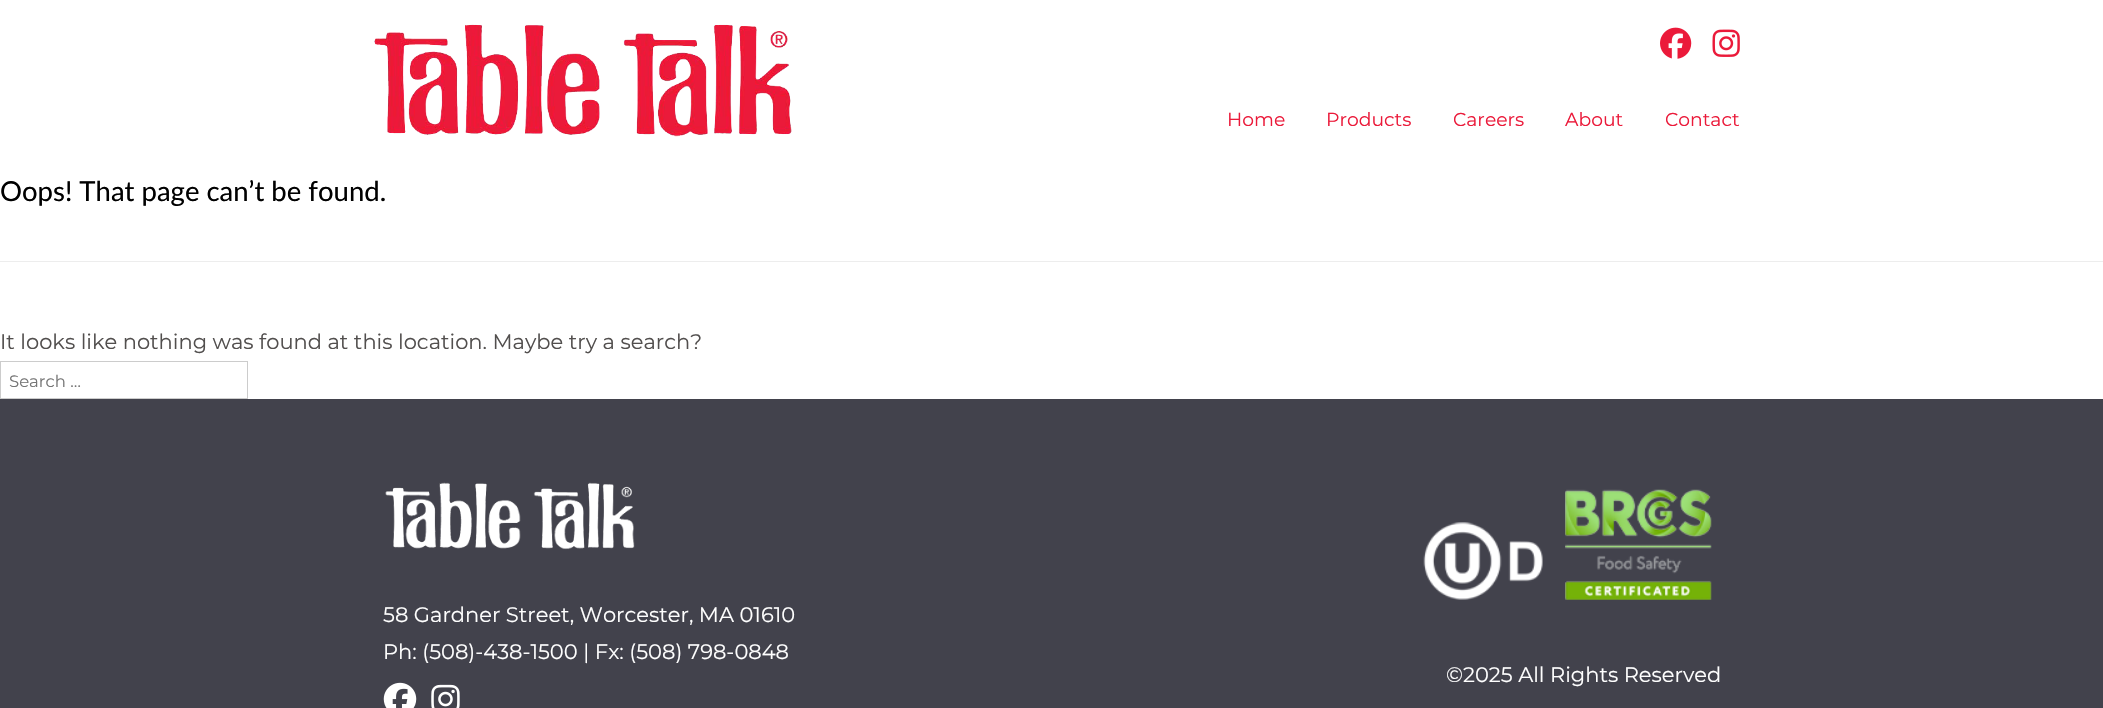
void draw(SkCanvas* canvas) {
  SkPaint paint;
  paint.setAntiAlias(true);
  auto face = [&](const char* family, int weight, float size, bool italic = false) {
    SkFontStyle style(weight, SkFontStyle::kNormal_Width,
      italic ? SkFontStyle::kItalic_Slant : SkFontStyle::kUpright_Slant);
    SkFont result(fontMgr->matchFamilyStyle(family, style), size);
    result.setSubpixel(true);
    return result;
  };
  auto paste = [&](const char* path, float x, float y, float w, float h) {
    auto image = SkImages::DeferredFromEncodedData(SkData::MakeFromFileName(path));
    canvas->drawImageRect(image, SkRect::MakeXYWH(x, y, w, h), SkSamplingOptions());
  };
  canvas->clear(0xffffffff);
  paste("img/1.png", 374, 24, 418, 113);
  paste("img/2.png", 1660, 27, 32, 32);
  paste("img/3.png", 1712, 29, 28, 28);
  paint.setColor(0xffededed);
  canvas->drawRect(SkRect::MakeXYWH(0, 261, 2103, 1), paint);
  paint.setStroke(true);
  paint.setStrokeWidth(1);
  paint.setColor(0xffcccccc);
  canvas->drawRect(SkRect::MakeXYWH(0.5f, 361.5f, 247, 37), paint);
  paint.setStroke(false);
  paint.setColor(0xff42424c);
  canvas->drawRect(SkRect::MakeXYWH(0, 399, 2103, 309), paint);
  paste("img/4.png", 385, 482, 250, 68);
  paste("img/5.png", 383, 682, 34, 26);
  paste("img/6.png", 431, 684, 29, 24);
  paste("img/7.png", 1423, 522, 120, 78);
  paste("img/8.png", 1565, 489, 147, 111);
  auto f0 = face("Montserrat", 400, 18.75f);
  paint.setColor(0xffeb1a3a);
  {
    const struct { const char* s; float x, y; } items[] = {
      {"Home", 1227, 126},
      {"Products", 1326, 126},
      {"Careers", 1453, 126},
      {"About", 1565, 126},
      {"Contact", 1665, 126},
    };
    for (auto [s, x, y] : items) {
      canvas->drawString(s, x, y, f0, paint);
    }
  }
  auto f1 = face("Lato", 400, 27.5f);
  paint.setColor(0xff000000);
  canvas->drawString("Oops! That page can’t be found.", 0, 201, f1, paint);
  auto f2 = face("Montserrat", 400, 21);
  paint.setColor(0xff524f4e);
  canvas->drawString("It looks like nothing was found at this location. Maybe try a search?", 0, 349, f2, paint);
  auto f3 = face("Montserrat", 400, 16.5f);
  paint.setColor(0xff757575);
  canvas->drawString("Search …", 9, 387, f3, paint);
  paint.setColor(0xffffffff);
  {
    const struct { const char* s; float x, y; } items[] = {
      {"58 Gardner Street, Worcester, MA 01610", 383, 622},
      {"Ph: (508)-438-1500 | Fx: (508) 798-0848", 383, 659},
      {"©2025 All Rights Reserved", 1446, 682},
    };
    for (auto [s, x, y] : items) {
      canvas->drawString(s, x, y, f2, paint);
    }
  }
}
